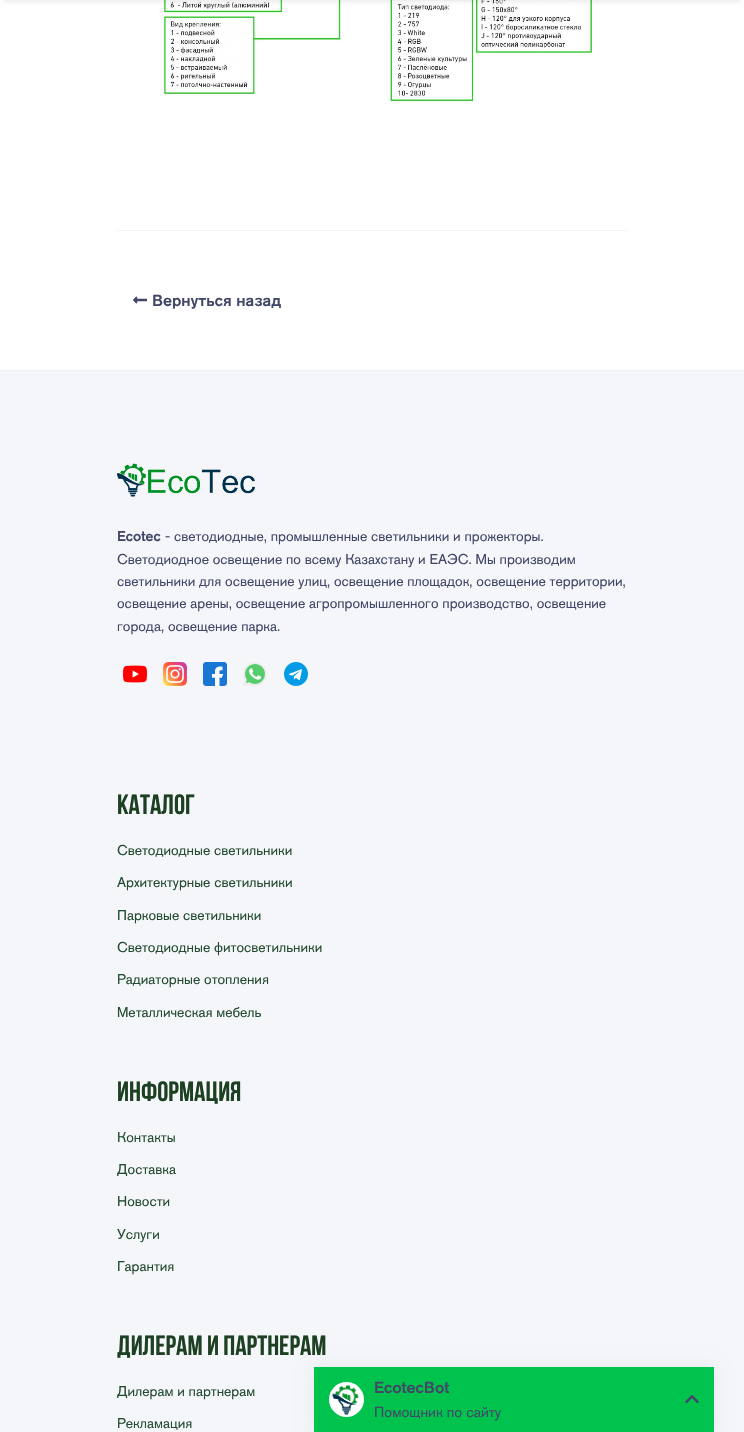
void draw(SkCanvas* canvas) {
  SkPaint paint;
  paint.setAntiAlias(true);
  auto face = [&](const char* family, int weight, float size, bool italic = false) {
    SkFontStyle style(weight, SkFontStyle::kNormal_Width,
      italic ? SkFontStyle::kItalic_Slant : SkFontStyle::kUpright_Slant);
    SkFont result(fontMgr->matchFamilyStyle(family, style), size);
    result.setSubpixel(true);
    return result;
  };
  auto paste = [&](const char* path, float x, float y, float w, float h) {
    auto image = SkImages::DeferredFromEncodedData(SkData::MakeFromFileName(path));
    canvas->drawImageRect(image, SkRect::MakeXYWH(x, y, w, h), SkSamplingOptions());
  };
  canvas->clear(0xffffffff);
  paste("img/1.png", 162, 0, 430, 103);
  paint.setColor(0x1a000000);
  paint.setMaskFilter(SkMaskFilter::MakeBlur(kNormal_SkBlurStyle, 2.5f));
  canvas->drawRect(SkRect::MakeXYWH(4, -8, 736, 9), paint);
  paint.setMaskFilter(nullptr);
  paint.setColor(0xfff3f3f3);
  canvas->drawRect(SkRect::MakeXYWH(117, 230, 510, 1), paint);
  paste("img/2.png", 133, 296, 15, 8);
  paint.setColor(0xfff5f6fa);
  canvas->drawRect(SkRect::MakeXYWH(0, 371, 744, 1061), paint);
  paint.setColor(0xfff1f1f1);
  canvas->drawRect(SkRect::MakeXYWH(0, 370, 744, 1), paint);
  paste("img/3.png", 117, 463, 138, 34);
  paste("img/4.png", 123, 665, 24, 18);
  paste("img/5.png", 163, 662, 24, 24);
  paste("img/6.png", 203, 662, 24, 24);
  paste("img/7.png", 243, 662, 24, 24);
  paste("img/8.png", 284, 662, 24, 24);
  paint.setColor(0x0f000000);
  paint.setMaskFilter(SkMaskFilter::MakeBlur(kNormal_SkBlurStyle, 7.5f));
  canvas->drawRect(SkRect::MakeXYWH(314, 1367, 400, 65), paint);
  paint.setMaskFilter(nullptr);
  paint.setColor(0xff00c34e);
  canvas->drawRect(SkRect::MakeXYWH(314, 1367, 400, 65), paint);
  paste("img/9.png", 329, 1382, 35, 35);
  paste("img/10.png", 685, 1395, 14, 9);
  auto f0 = face("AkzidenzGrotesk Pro", 500, 16);
  paint.setColor(0xff424767);
  canvas->drawString("Вернуться назад", 152, 306, f0, paint);
  auto f1 = face("AkzidenzGrotesk Pro", 500, 14);
  canvas->drawString("Ecotec", 117, 541, f1, paint);
  auto f2 = face("AkzidenzGrotesk Pro", 400, 14);
  {
    const struct { const char* s; float x, y; } items[] = {
      {"- светодиодные, промышленные светильники и прожекторы.", 165, 541},
      {"Светодиодное освещение по всему Казахстану и ЕАЭС. Мы производим", 117, 564},
      {"светильники для освещение улиц, освещение площадок, освещение территории,", 117, 586},
      {"освещение арены, освещение агропромышленного производство, освещение", 117, 608},
      {"города, освещение парка.", 117, 631},
    };
    for (auto [s, x, y] : items) {
      canvas->drawString(s, x, y, f2, paint);
    }
  }
  auto f3 = face("Bebas Neue", 700, 28);
  paint.setColor(0xff1c4021);
  canvas->drawString("Каталог", 117, 814, f3, paint);
  paint.setColor(0xff244c31);
  {
    const struct { const char* s; float x, y; } items[] = {
      {"Светодиодные светильники", 117, 855},
      {"Архитектурные светильники", 117, 887},
      {"Парковые светильники", 117, 920},
      {"Светодиодные фитосветильники", 117, 952},
      {"Радиаторные отопления", 117, 984},
      {"Металлическая мебель", 117, 1017},
    };
    for (auto [s, x, y] : items) {
      canvas->drawString(s, x, y, f2, paint);
    }
  }
  paint.setColor(0xff1c4021);
  canvas->drawString("Информация", 117, 1101, f3, paint);
  paint.setColor(0xff244c31);
  {
    const struct { const char* s; float x, y; } items[] = {
      {"Контакты", 117, 1142},
      {"Доставка", 117, 1174},
      {"Новости", 117, 1206},
      {"Услуги", 117, 1239},
      {"Гарантия", 117, 1271},
    };
    for (auto [s, x, y] : items) {
      canvas->drawString(s, x, y, f2, paint);
    }
  }
  paint.setColor(0xff1c4021);
  canvas->drawString("Дилерам и партнерам", 117, 1355, f3, paint);
  paint.setColor(0xff244c31);
  canvas->drawString("Дилерам и партнерам", 117, 1396, f2, paint);
  canvas->drawString("Рекламация", 117, 1428, f2, paint);
  paint.setColor(0xff424767);
  canvas->drawString("EcotecBot", 374, 1393, f0, paint);
  auto f4 = face("AkzidenzGrotesk Pro", 400, 14.5f);
  canvas->drawString("Помощник по сайту", 374, 1417, f4, paint);
}
